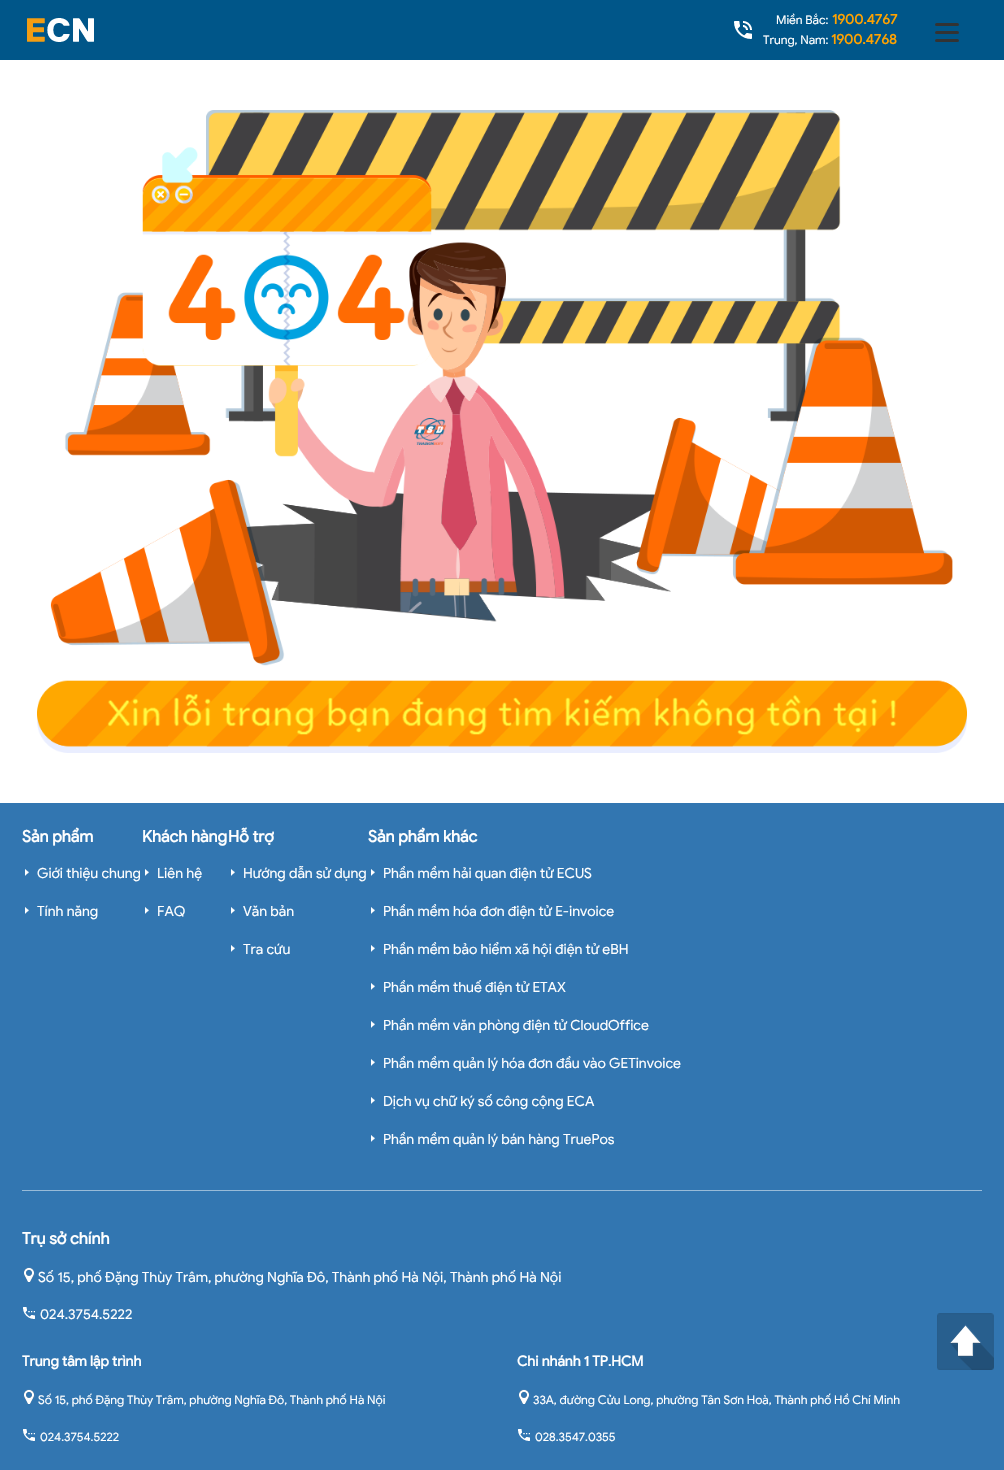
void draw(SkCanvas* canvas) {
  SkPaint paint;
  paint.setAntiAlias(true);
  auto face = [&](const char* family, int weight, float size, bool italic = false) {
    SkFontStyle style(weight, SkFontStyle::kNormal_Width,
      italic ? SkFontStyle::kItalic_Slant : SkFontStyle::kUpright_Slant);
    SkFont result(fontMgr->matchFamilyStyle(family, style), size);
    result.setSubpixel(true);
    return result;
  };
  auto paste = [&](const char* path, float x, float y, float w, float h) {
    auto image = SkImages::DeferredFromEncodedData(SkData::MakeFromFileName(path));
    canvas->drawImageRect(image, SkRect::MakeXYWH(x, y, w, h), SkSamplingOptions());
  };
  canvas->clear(0xffffffff);
  paint.setColor(0xff005689);
  canvas->drawRect(SkRect::MakeXYWH(0, 0, 1004, 60), paint);
  paste("img/1.png", 27, 18, 67, 24);
  paste("img/2.png", 734, 21, 18, 18);
  paint.setColor(0xff333333);
  canvas->drawRoundRect(SkRect::MakeXYWH(935, 23, 24, 3), 1.5f, 1.5f, paint);
  canvas->drawRoundRect(SkRect::MakeXYWH(935, 31, 24, 3), 1.5f, 1.5f, paint);
  canvas->drawRoundRect(SkRect::MakeXYWH(935, 39, 24, 3), 1.5f, 1.5f, paint);
  paste("img/3.png", 37, 110, 930, 643);
  paint.setColor(0xff3276b1);
  canvas->drawRect(SkRect::MakeXYWH(0, 803, 1004, 667), paint);
  paint.setColor(0xff99bbd8);
  canvas->drawRect(SkRect::MakeXYWH(22, 1190, 960, 1), paint);
  paste("img/4.png", 25, 869, 4, 7);
  paste("img/4.png", 25, 907, 4, 7);
  paste("img/4.png", 145, 869, 4, 7);
  paste("img/4.png", 145, 907, 4, 7);
  paste("img/4.png", 231, 869, 4, 7);
  paste("img/4.png", 231, 907, 4, 7);
  paste("img/4.png", 231, 945, 4, 7);
  paste("img/4.png", 371, 869, 4, 7);
  paste("img/4.png", 371, 907, 4, 7);
  paste("img/4.png", 371, 945, 4, 7);
  paste("img/4.png", 371, 983, 4, 7);
  paste("img/4.png", 371, 1021, 4, 7);
  paste("img/4.png", 371, 1059, 4, 7);
  paste("img/4.png", 371, 1097, 4, 7);
  paste("img/4.png", 371, 1135, 4, 7);
  paste("img/5.png", 23, 1267, 13, 15);
  paste("img/6.png", 23, 1307, 12, 12);
  paste("img/5.png", 23, 1389, 13, 15);
  paste("img/6.png", 23, 1429, 12, 12);
  paste("img/5.png", 518, 1389, 13, 15);
  paste("img/6.png", 518, 1429, 12, 12);
  paste("img/7.png", 937, 1313, 57, 57);
  auto f0 = face("Google Sans", 400, 12);
  paint.setColor(0xffffffff);
  canvas->drawString("Miền Bắc:", 776, 24, f0, paint);
  auto f1 = face("Google Sans", 700, 14);
  paint.setColor(0xffffa200);
  canvas->drawString("1900.4767", 832, 24, f1, paint);
  paint.setColor(0xffffffff);
  canvas->drawString("Trung, Nam:", 763, 44, f0, paint);
  paint.setColor(0xffffa200);
  canvas->drawString("1900.4768", 831, 44, f1, paint);
  auto f2 = face("Google Sans", 700, 16);
  paint.setColor(0xffffffff);
  canvas->drawString("Sản phẩm", 22, 842, f2, paint);
  auto f3 = face("Google Sans", 400, 14);
  canvas->drawString("Giới thiệu chung", 37, 878, f3, paint);
  canvas->drawString("Tính năng", 37, 916, f3, paint);
  canvas->drawString("Khách hàng", 142, 842, f2, paint);
  canvas->drawString("Liên hệ", 157, 878, f3, paint);
  canvas->drawString("FAQ", 157, 916, f3, paint);
  canvas->drawString("Hỗ trợ", 228, 842, f2, paint);
  {
    const struct { const char* s; float x, y; } items[] = {
      {"Hướng dẫn sử dụng", 243, 878},
      {"Văn bản", 243, 916},
      {"Tra cứu", 243, 954},
    };
    for (auto [s, x, y] : items) {
      canvas->drawString(s, x, y, f3, paint);
    }
  }
  canvas->drawString("Sản phẩm khác", 368, 842, f2, paint);
  {
    const struct { const char* s; float x, y; } items[] = {
      {"Phần mềm hải quan điện tử ECUS", 383, 878},
      {"Phần mềm hóa đơn điện tử E-invoice", 383, 916},
      {"Phần mềm bảo hiểm xã hội điện tử eBH", 383, 954},
      {"Phần mềm thuế điện tử ETAX", 383, 992},
      {"Phần mềm văn phòng điện tử CloudOffice", 383, 1030},
      {"Phần mềm quản lý hóa đơn đầu vào GETinvoice", 383, 1068},
      {"Dịch vụ chữ ký số công cộng ECA", 383, 1106},
      {"Phần mềm quản lý bán hàng TruePos", 383, 1144},
    };
    for (auto [s, x, y] : items) {
      canvas->drawString(s, x, y, f3, paint);
    }
  }
  canvas->drawString("Trụ sở chính", 22, 1244, f2, paint);
  canvas->drawString("Số 15, phố Đặng Thùy Trâm, phường Nghĩa Đô, Thành phố Hà Nội, Thành phố Hà Nội", 38, 1282, f3, paint);
  canvas->drawString("024.3754.5222", 40, 1319, f3, paint);
  canvas->drawString("Trung tâm lập trình", 22, 1366, f1, paint);
  canvas->drawString("Số 15, phố Đặng Thùy Trâm, phường Nghĩa Đô, Thành phố Hà Nội", 38, 1404, f0, paint);
  canvas->drawString("024.3754.5222", 40, 1441, f0, paint);
  canvas->drawString("Chi nhánh 1 TP.HCM", 517, 1366, f1, paint);
  canvas->drawString("33A, đường Cửu Long, phường Tân Sơn Hoà, Thành phố Hồ Chí Minh", 533, 1404, f0, paint);
  canvas->drawString("028.3547.0355", 535, 1441, f0, paint);
}
